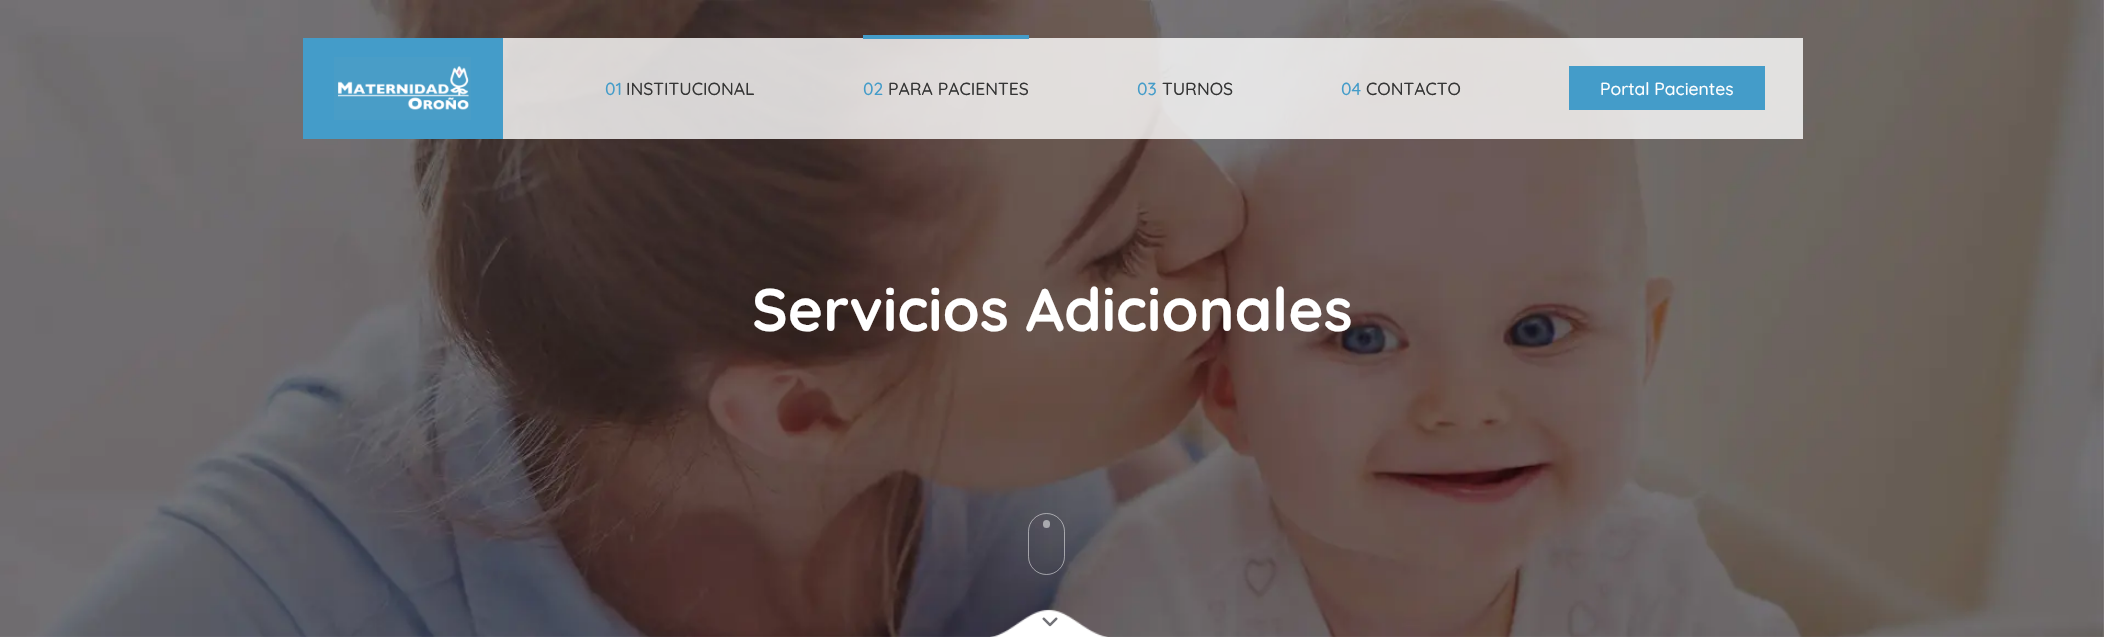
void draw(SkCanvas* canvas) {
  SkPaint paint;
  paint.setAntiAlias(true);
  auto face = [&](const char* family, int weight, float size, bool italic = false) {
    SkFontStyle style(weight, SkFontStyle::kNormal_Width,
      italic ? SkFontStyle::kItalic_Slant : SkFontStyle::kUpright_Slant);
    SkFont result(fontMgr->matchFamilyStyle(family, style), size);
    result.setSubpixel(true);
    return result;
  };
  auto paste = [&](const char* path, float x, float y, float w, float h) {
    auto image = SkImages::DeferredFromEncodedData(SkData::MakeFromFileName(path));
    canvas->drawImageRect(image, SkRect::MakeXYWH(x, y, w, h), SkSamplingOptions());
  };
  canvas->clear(0xffffffff);
  paste("img/2.png", 0, 0, 2104, 637);
  paint.setColor(0xccffffff);
  canvas->drawRect(SkRect::MakeXYWH(503, 38, 1300, 101), paint);
  paint.setColor(0xff449cc9);
  canvas->drawRect(SkRect::MakeXYWH(303, 38, 200, 101), paint);
  paste("img/1.png", 334, 57, 137, 63);
  canvas->drawRect(SkRect::MakeXYWH(863, 35, 166, 4), paint);
  canvas->drawRect(SkRect::MakeXYWH(1569, 66, 196, 44), paint);
  paint.setStroke(true);
  paint.setStrokeWidth(1);
  paint.setColor(0x80ffffff);
  canvas->drawRoundRect(SkRect::MakeXYWH(1028.5f, 513.5f, 36, 61), 18, 18, paint);
  paint.setStroke(false);
  canvas->drawRoundRect(SkRect::MakeXYWH(1043, 520, 7, 8), 3.5f, 3.5f, paint);
  paste("img/3.png", 990, 609, 118, 28);
  paste("img/4.png", 1042, 617, 16, 10);
  auto f0 = face("Quicksand", 500, 17.5f);
  paint.setColor(0xff449cc9);
  canvas->drawString("01", 605, 95, f0, paint);
  paint.setColor(0xff353535);
  canvas->drawString("INSTITUCIONAL", 626, 95, f0, paint);
  paint.setColor(0xff449cc9);
  canvas->drawString("02", 863, 95, f0, paint);
  paint.setColor(0xff353535);
  canvas->drawString("PARA PACIENTES", 888, 95, f0, paint);
  paint.setColor(0xff449cc9);
  canvas->drawString("03", 1137, 95, f0, paint);
  paint.setColor(0xff353535);
  canvas->drawString("TURNOS", 1162, 95, f0, paint);
  paint.setColor(0xff449cc9);
  canvas->drawString("04", 1341, 95, f0, paint);
  paint.setColor(0xff353535);
  canvas->drawString("CONTACTO", 1366, 95, f0, paint);
  paint.setColor(0xffffffff);
  canvas->drawString("Portal Pacientes", 1600, 95, f0, paint);
  auto f1 = face("Quicksand", 700, 60);
  canvas->drawString("Servicios Adicionales", 752, 331, f1, paint);
}
